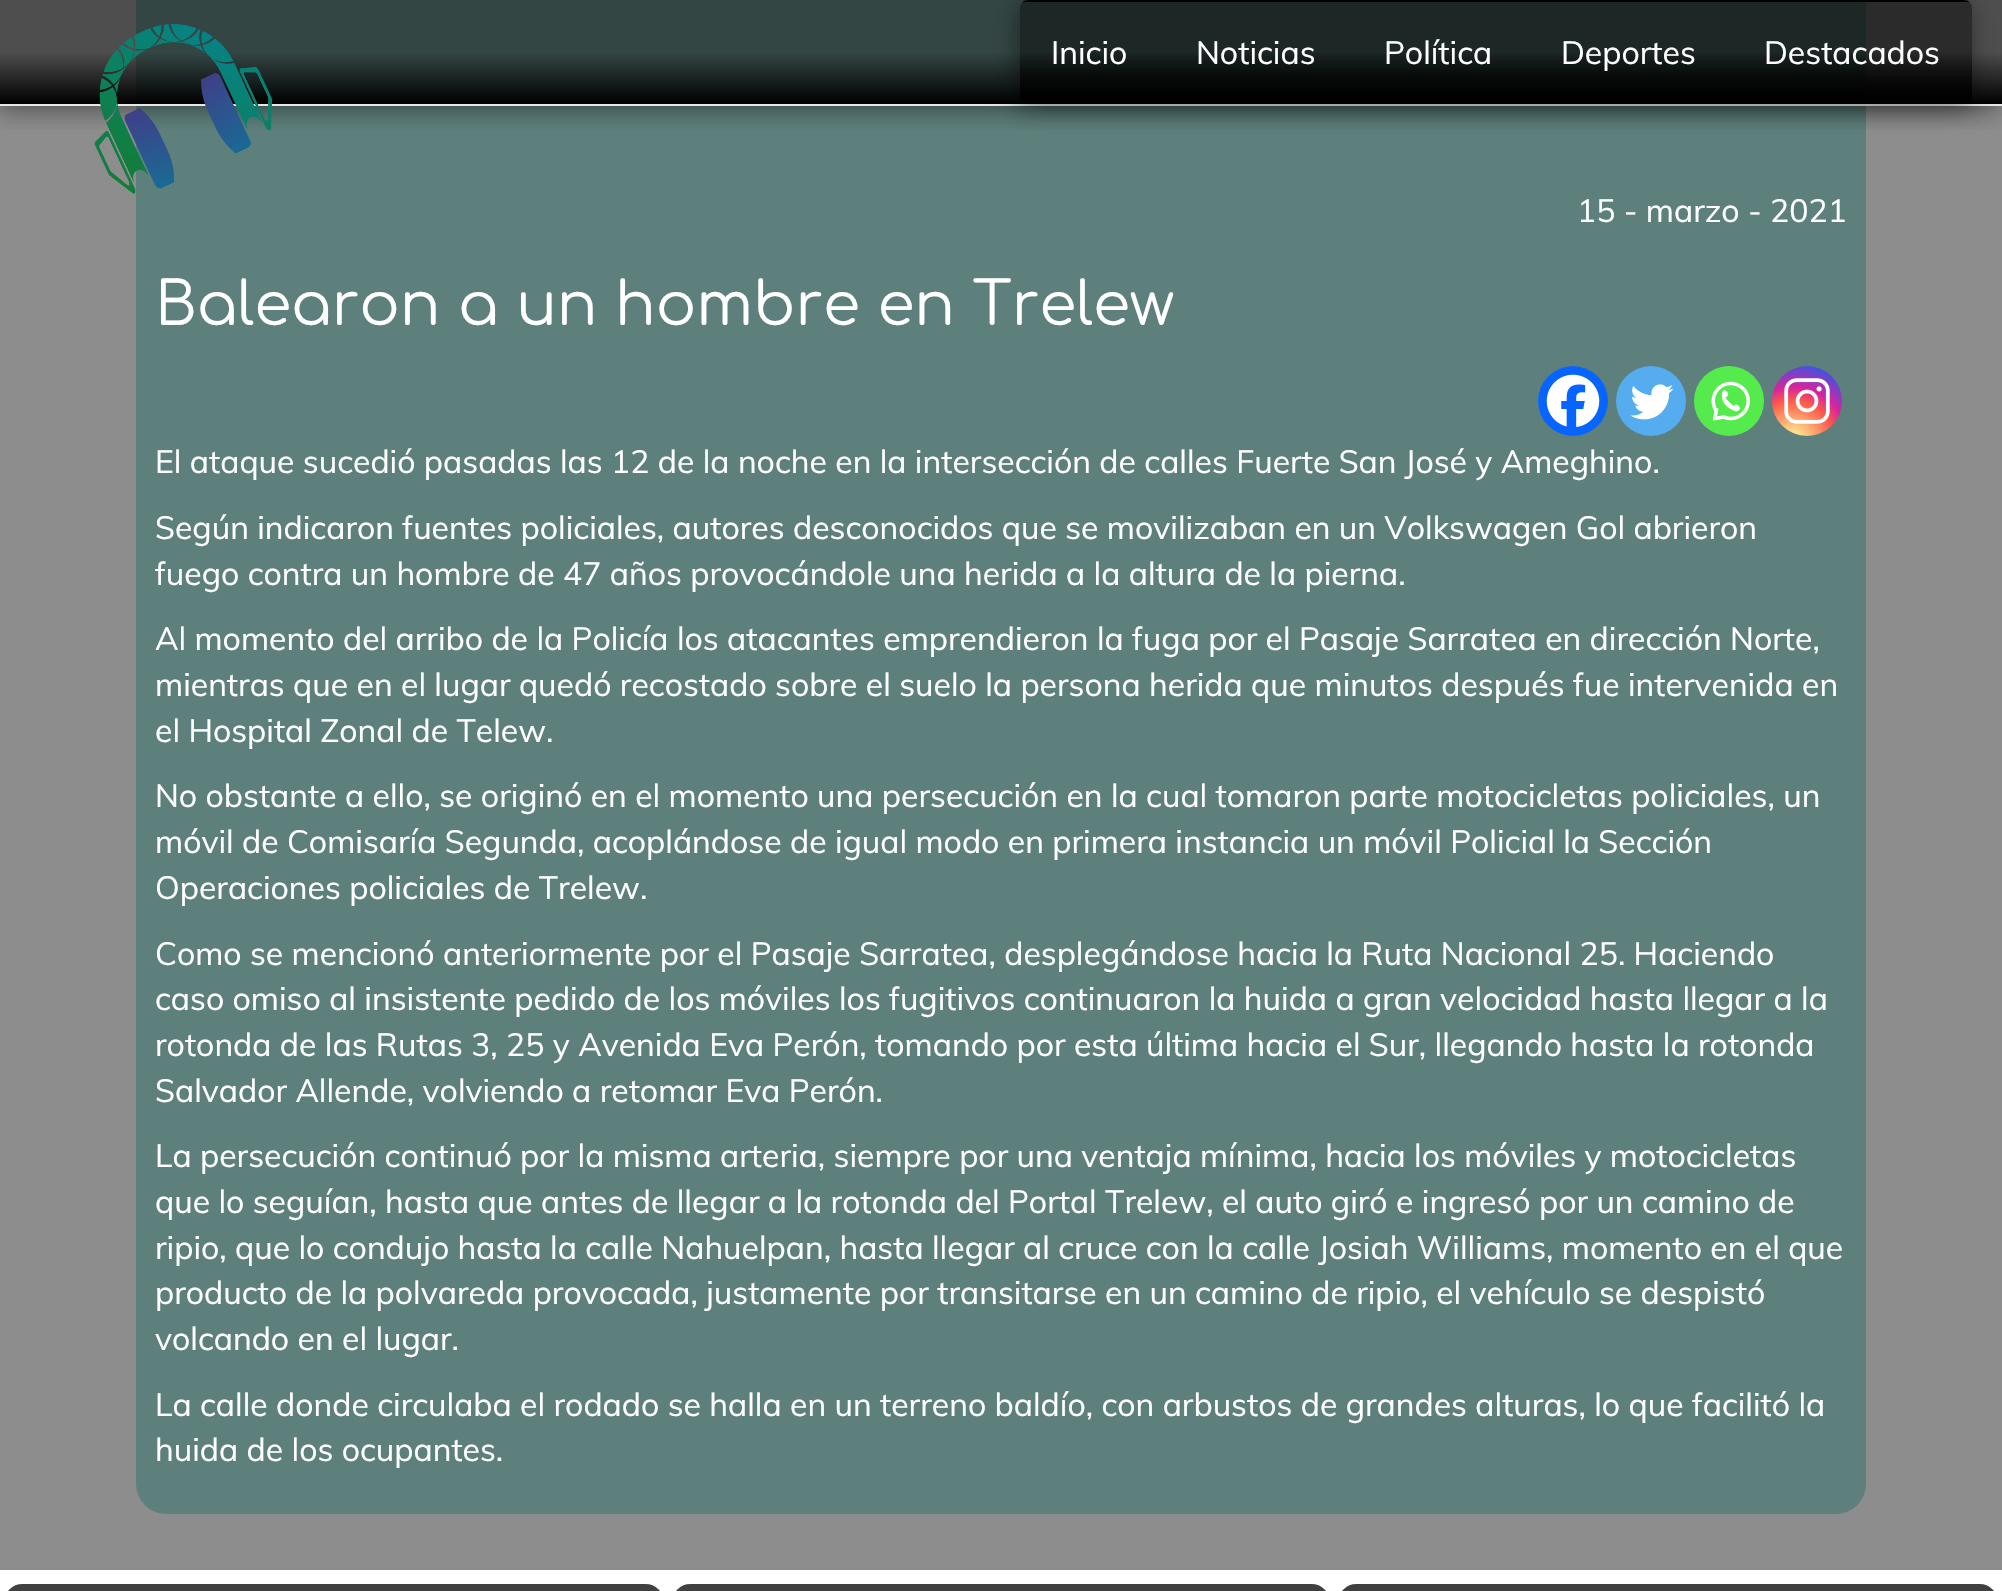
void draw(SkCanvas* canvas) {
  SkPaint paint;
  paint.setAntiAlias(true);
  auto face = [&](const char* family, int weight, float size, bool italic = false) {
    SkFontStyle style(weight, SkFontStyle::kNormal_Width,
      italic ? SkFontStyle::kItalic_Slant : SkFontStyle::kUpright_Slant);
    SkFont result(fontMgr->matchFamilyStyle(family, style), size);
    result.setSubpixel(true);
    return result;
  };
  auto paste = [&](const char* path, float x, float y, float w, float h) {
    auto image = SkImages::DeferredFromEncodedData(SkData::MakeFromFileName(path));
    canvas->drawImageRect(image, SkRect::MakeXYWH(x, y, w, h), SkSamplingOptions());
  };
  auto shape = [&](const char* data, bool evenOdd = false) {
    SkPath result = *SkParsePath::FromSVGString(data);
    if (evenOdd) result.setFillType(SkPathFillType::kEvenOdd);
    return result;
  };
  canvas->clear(0xff8d8d8d);
  paint.setColor(0xff5e807c);
  canvas->drawRoundRect(SkRect::MakeXYWH(136, -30, 1730, 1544), 30, 30, paint);
  canvas->save();
  canvas->clipRect(SkRect::MakeXYWH(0, 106, 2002, 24));
  paint.setColor(0x73000000);
  paint.setMaskFilter(SkMaskFilter::MakeBlur(kNormal_SkBlurStyle, 12));
  canvas->drawRect(SkRect::MakeXYWH(-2, 4, 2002, 106), paint);
  paint.setMaskFilter(nullptr);
  canvas->restore();
  {
    const SkColor colors[] = {0x73000000, 0x73000000, 0xff000000};
    const float stops[] = {0, 0.5f, 1};
    const SkPoint ends[] = {{1001, 0}, {1001, 104}};
    paint.setShader(SkGradientShader::MakeLinear(ends, colors, stops, 3, SkTileMode::kClamp));
    paint.setAlpha(255);
  }
  canvas->drawRect(SkRect::MakeXYWH(0, 0, 2002, 104), paint);
  paint.setShader(nullptr);
  paint.setColor(0xffe7e7e7);
  canvas->drawRect(SkRect::MakeXYWH(0, 104, 2002, 2), paint);
  paste("img/1.png", 94, 24, 179, 170);
  canvas->save();
  canvas->clipPath(shape("M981 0H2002V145H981ZM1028 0H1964C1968.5 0 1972 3.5 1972 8V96C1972 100.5 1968.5 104 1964 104H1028C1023.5 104 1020 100.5 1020 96V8C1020 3.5 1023.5 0 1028 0Z", true), true);
  paint.setColor(0x73000000);
  paint.setMaskFilter(SkMaskFilter::MakeBlur(kNormal_SkBlurStyle, 12));
  canvas->drawRoundRect(SkRect::MakeXYWH(1018, 4, 952, 104), 8, 8, paint);
  paint.setMaskFilter(nullptr);
  canvas->restore();
  canvas->save();
  canvas->clipPath(shape("M1028 0H1964C1968.5 0 1972 3.5 1972 8V96C1972 100.5 1968.5 104 1964 104H1028C1023.5 104 1020 100.5 1020 96V8C1020 3.5 1023.5 0 1028 0Z"), true);
  {
    const SkColor colors[] = {0x73000000, 0x73000000, 0xff000000};
    const float stops[] = {0, 0.5f, 1};
    const SkPoint ends[] = {{1496, -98}, {1496, 2}};
    paint.setShader(SkGradientShader::MakeLinear(ends, colors, stops, 3, SkTileMode::kClamp));
    paint.setAlpha(255);
  }
  canvas->drawRect(SkRect::MakeXYWH(1020, 0, 952, 2), paint);
  {
    const SkColor colors[] = {0x73000000, 0x73000000, 0xff000000};
    const float stops[] = {0, 0.5f, 1};
    const SkPoint ends[] = {{1496, 2}, {1496, 102}};
    paint.setShader(SkGradientShader::MakeLinear(ends, colors, stops, 3, SkTileMode::kClamp));
    paint.setAlpha(255);
  }
  canvas->drawRect(SkRect::MakeXYWH(1020, 2, 952, 100), paint);
  canvas->restore();
  paint.setShader(nullptr);
  paint.setColor(0xff0765fe);
  canvas->drawCircle(1573, 401, 35, paint);
  paste("img/2.png", 1546, 374, 54, 53);
  paint.setColor(0xff55acee);
  canvas->drawCircle(1651, 401, 35, paint);
  paste("img/3.png", 1630, 384, 44, 36);
  paint.setColor(0xff55eb4c);
  canvas->drawCircle(1729, 401, 35, paint);
  paste("img/4.png", 1711, 381, 39, 40);
  {
    const SkColor colors[] = {0xfffdf497, 0xfffdf497, 0xfffd5949, 0xffd6249f, 0xff285aeb};
    const float stops[] = {0, 0.05f, 0.45f, 0.6f, 0.9f};
    paint.setShader(SkGradientShader::MakeRadial({1793, 441}, 90, colors, stops, 5, SkTileMode::kClamp));
    paint.setAlpha(255);
  }
  canvas->drawCircle(1807, 401, 35, paint);
  paste("img/5.png", 1784, 378, 46, 46);
  paint.setShader(nullptr);
  paint.setColor(0xffffffff);
  canvas->drawRect(SkRect::MakeXYWH(0, 1570, 2002, 21), paint);
  paint.setColor(0xff404040);
  canvas->drawRoundRect(SkRect::MakeXYWH(2, 1582, 664, 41), 28, 28, paint);
  paint.setStroke(true);
  paint.setStrokeWidth(4);
  paint.setColor(0xffffffff);
  canvas->drawRoundRect(SkRect::MakeXYWH(2, 1582, 664, 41), 28, 28, paint);
  paint.setStroke(false);
  paint.setColor(0xff404040);
  canvas->drawRoundRect(SkRect::MakeXYWH(670, 1582, 662, 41), 28, 28, paint);
  paint.setStroke(true);
  paint.setColor(0xffffffff);
  canvas->drawRoundRect(SkRect::MakeXYWH(670, 1582, 662, 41), 28, 28, paint);
  paint.setStroke(false);
  paint.setColor(0xff404040);
  canvas->drawRoundRect(SkRect::MakeXYWH(1336, 1582, 664, 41), 28, 28, paint);
  paint.setStroke(true);
  paint.setColor(0xffffffff);
  canvas->drawRoundRect(SkRect::MakeXYWH(1336, 1582, 664, 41), 28, 28, paint);
  auto f0 = face("Muli", 400, 32);
  paint.setStroke(false);
  {
    const struct { const char* s; float x, y; } items[] = {
      {"Inicio", 1051, 64},
      {"Noticias", 1196, 64},
      {"Política", 1384, 64},
      {"Deportes", 1561, 64},
      {"Destacados", 1764, 64},
      {"15 - marzo - 2021", 1577, 222},
    };
    for (auto [s, x, y] : items) {
      canvas->drawString(s, x, y, f0, paint);
    }
  }
  auto f1 = face("Comfortaa", 400, 60);
  canvas->drawString("Balearon a un hombre en Trelew", 155, 325, f1, paint);
  {
    const struct { const char* s; float x, y; } items[] = {
      {"El ataque sucedió pasadas las 12 de la noche en la intersección de calles Fuerte San José y Ameghino.", 155, 473},
      {"Según indicaron fuentes policiales, autores desconocidos que se movilizaban en un Volkswagen Gol abrieron", 155, 539},
      {"fuego contra un hombre de 47 años provocándole una herida a la altura de la pierna.", 155, 585},
      {"Al momento del arribo de la Policía los atacantes emprendieron la fuga por el Pasaje Sarratea en dirección Norte,", 155, 650},
      {"mientras que en el lugar quedó recostado sobre el suelo la persona herida que minutos después fue intervenida en", 155, 696},
      {"el Hospital Zonal de Telew.", 155, 742},
      {"No obstante a ello, se originó en el momento una persecución en la cual tomaron parte motocicletas policiales, un", 155, 807},
      {"móvil de Comisaría Segunda, acoplándose de igual modo en primera instancia un móvil Policial la Sección", 155, 853},
      {"Operaciones policiales de Trelew.", 155, 899},
      {"Como se mencionó anteriormente por el Pasaje Sarratea, desplegándose hacia la Ruta Nacional 25. Haciendo", 155, 965},
      {"caso omiso al insistente pedido de los móviles los fugitivos continuaron la huida a gran velocidad hasta llegar a la", 155, 1010},
      {"rotonda de las Rutas 3, 25 y Avenida Eva Perón, tomando por esta última hacia el Sur, llegando hasta la rotonda", 155, 1056},
      {"Salvador Allende, volviendo a retomar Eva Perón.", 155, 1102},
      {"La persecución continuó por la misma arteria, siempre por una ventaja mínima, hacia los móviles y motocicletas", 155, 1167},
      {"que lo seguían, hasta que antes de llegar a la rotonda del Portal Trelew, el auto giró e ingresó por un camino de", 155, 1213},
      {"ripio, que lo condujo hasta la calle Nahuelpan, hasta llegar al cruce con la calle Josiah Williams, momento en el que", 155, 1259},
      {"producto de la polvareda provocada, justamente por transitarse en un camino de ripio, el vehículo se despistó", 155, 1304},
      {"volcando en el lugar.", 155, 1350},
      {"La calle donde circulaba el rodado se halla en un terreno baldío, con arbustos de grandes alturas, lo que facilitó la", 155, 1416},
      {"huida de los ocupantes.", 155, 1461},
    };
    for (auto [s, x, y] : items) {
      canvas->drawString(s, x, y, f0, paint);
    }
  }
}
